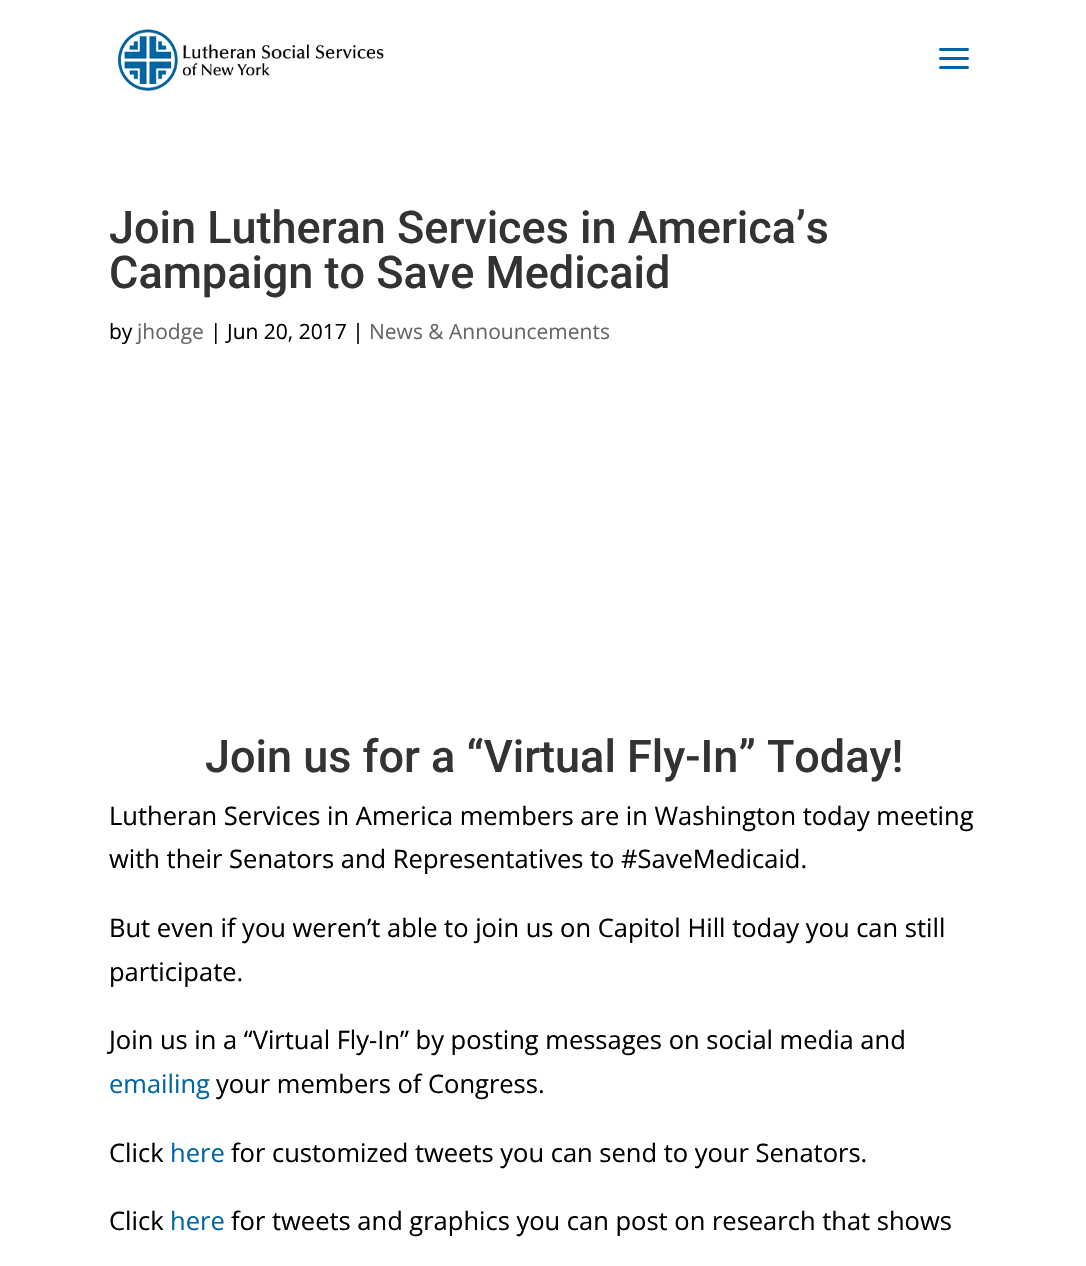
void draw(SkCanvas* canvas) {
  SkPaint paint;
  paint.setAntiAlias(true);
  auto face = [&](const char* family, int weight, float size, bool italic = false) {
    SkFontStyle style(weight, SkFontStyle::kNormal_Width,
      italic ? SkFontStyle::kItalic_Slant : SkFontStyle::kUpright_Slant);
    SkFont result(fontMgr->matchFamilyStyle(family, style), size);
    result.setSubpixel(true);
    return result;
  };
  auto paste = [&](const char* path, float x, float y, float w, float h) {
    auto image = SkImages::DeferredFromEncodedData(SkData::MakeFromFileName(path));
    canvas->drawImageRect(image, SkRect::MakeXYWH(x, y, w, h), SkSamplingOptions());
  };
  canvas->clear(0xffffffff);
  paste("img/1.png", 117, 29, 267, 62);
  paste("img/2.png", 939, 48, 30, 21);
  auto f0 = face("Roboto", 500, 45);
  paint.setColor(0xff333333);
  canvas->drawString("Join Lutheran Services in America’s", 109, 243, f0, paint);
  canvas->drawString("Campaign to Save Medicaid", 109, 288, f0, paint);
  auto f1 = face("Open Sans", 400, 21);
  paint.setColor(0xff000000);
  canvas->drawString("by", 109, 339, f1, paint);
  paint.setColor(0xff666666);
  canvas->drawString("jhodge", 137, 339, f1, paint);
  paint.setColor(0xff000000);
  canvas->drawString("| Jun 20, 2017 |", 210, 339, f1, paint);
  paint.setColor(0xff666666);
  canvas->drawString("News & Announcements", 369, 339, f1, paint);
  paint.setColor(0xff333333);
  canvas->drawString("Join us for a “Virtual Fly-In” Today!", 205, 772, f0, paint);
  auto f2 = face("Open Sans", 400, 25.5f);
  paint.setColor(0xff000000);
  {
    const struct { const char* s; float x, y; } items[] = {
      {"Lutheran Services in America members are in Washington today meeting", 109, 825},
      {"with their Senators and Representatives to #SaveMedicaid.", 109, 868},
      {"But even if you weren’t able to join us on Capitol Hill today you can still", 109, 937},
      {"participate.", 109, 981},
      {"Join us in a “Virtual Fly-In” by posting messages on social media and", 109, 1049},
    };
    for (auto [s, x, y] : items) {
      canvas->drawString(s, x, y, f2, paint);
    }
  }
  paint.setColor(0xff0065a3);
  canvas->drawString("emailing", 109, 1093, f2, paint);
  paint.setColor(0xff000000);
  canvas->drawString("your members of Congress.", 216, 1093, f2, paint);
  canvas->drawString("Click", 109, 1162, f2, paint);
  paint.setColor(0xff0065a3);
  canvas->drawString("here", 170, 1162, f2, paint);
  paint.setColor(0xff000000);
  canvas->drawString("for customized tweets you can send to your Senators.", 231, 1162, f2, paint);
  canvas->drawString("Click", 109, 1230, f2, paint);
  paint.setColor(0xff0065a3);
  canvas->drawString("here", 170, 1230, f2, paint);
  paint.setColor(0xff000000);
  canvas->drawString("for tweets and graphics you can post on research that shows", 231, 1230, f2, paint);
}
